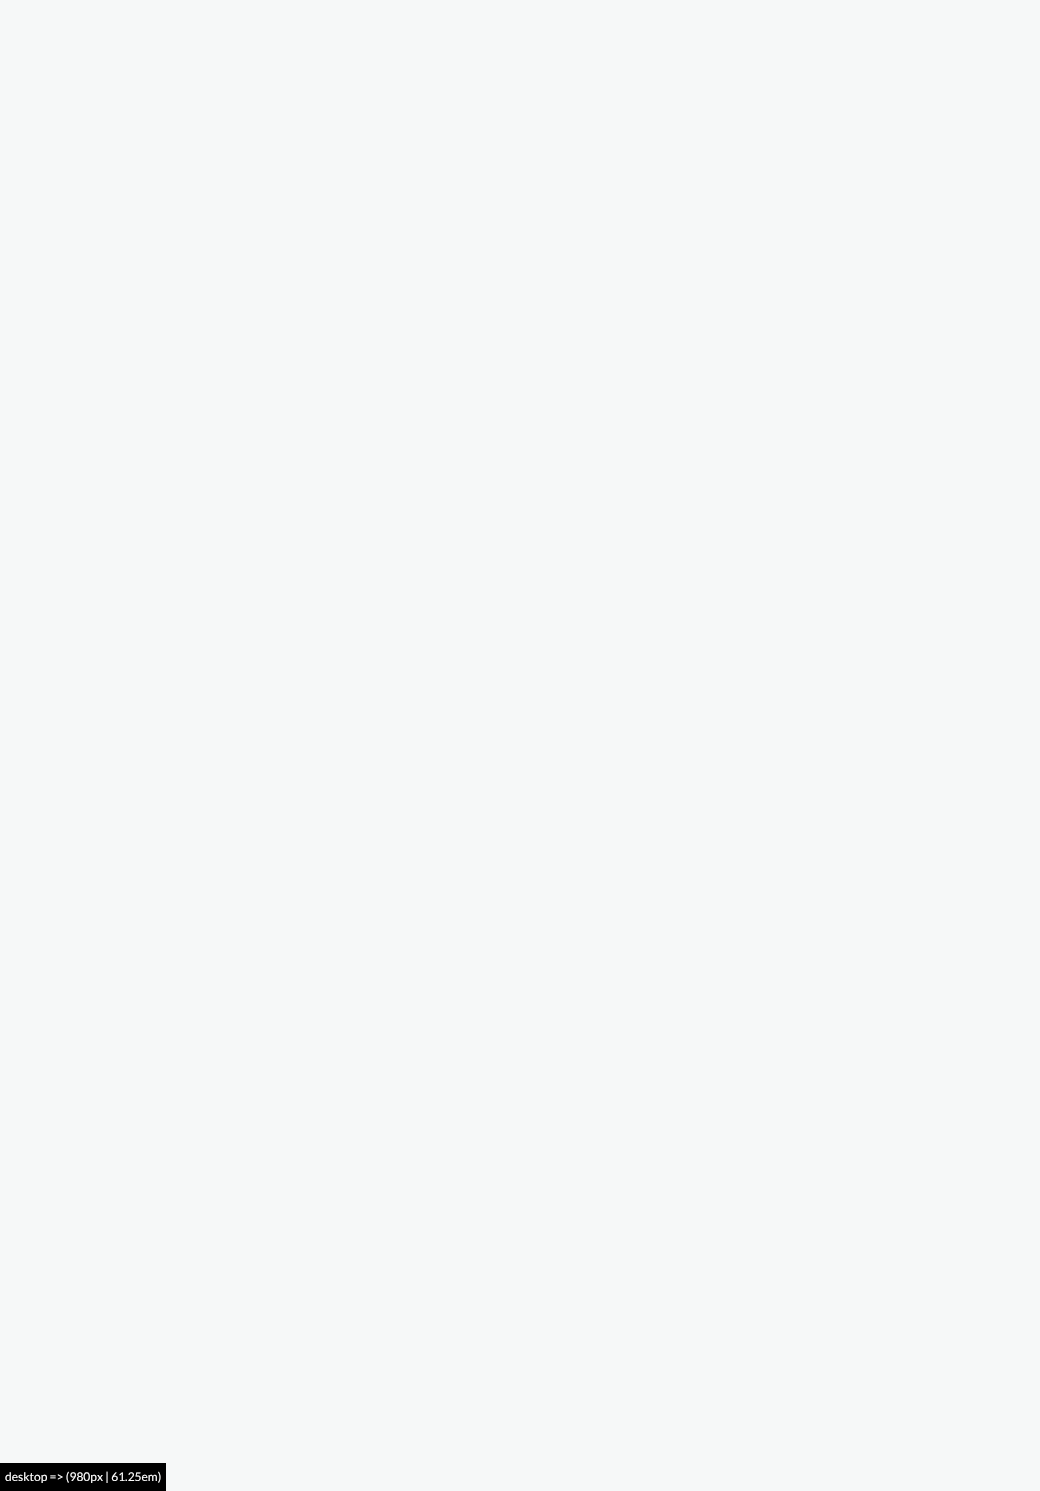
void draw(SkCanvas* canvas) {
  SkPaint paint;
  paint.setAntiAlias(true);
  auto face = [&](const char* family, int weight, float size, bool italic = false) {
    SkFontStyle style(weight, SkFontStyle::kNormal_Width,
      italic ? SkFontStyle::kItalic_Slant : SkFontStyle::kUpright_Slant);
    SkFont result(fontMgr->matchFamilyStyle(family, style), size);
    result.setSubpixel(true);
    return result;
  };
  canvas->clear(0xfff6f8f8);
  paint.setColor(0xff000000);
  canvas->drawRect(SkRect::MakeXYWH(0, 1463, 166, 28), paint);
  auto f0 = face("Lato", 400, 12);
  paint.setColor(0xffffffff);
  canvas->drawString("desktop => (980px | 61.25em)", 5, 1481, f0, paint);
}
